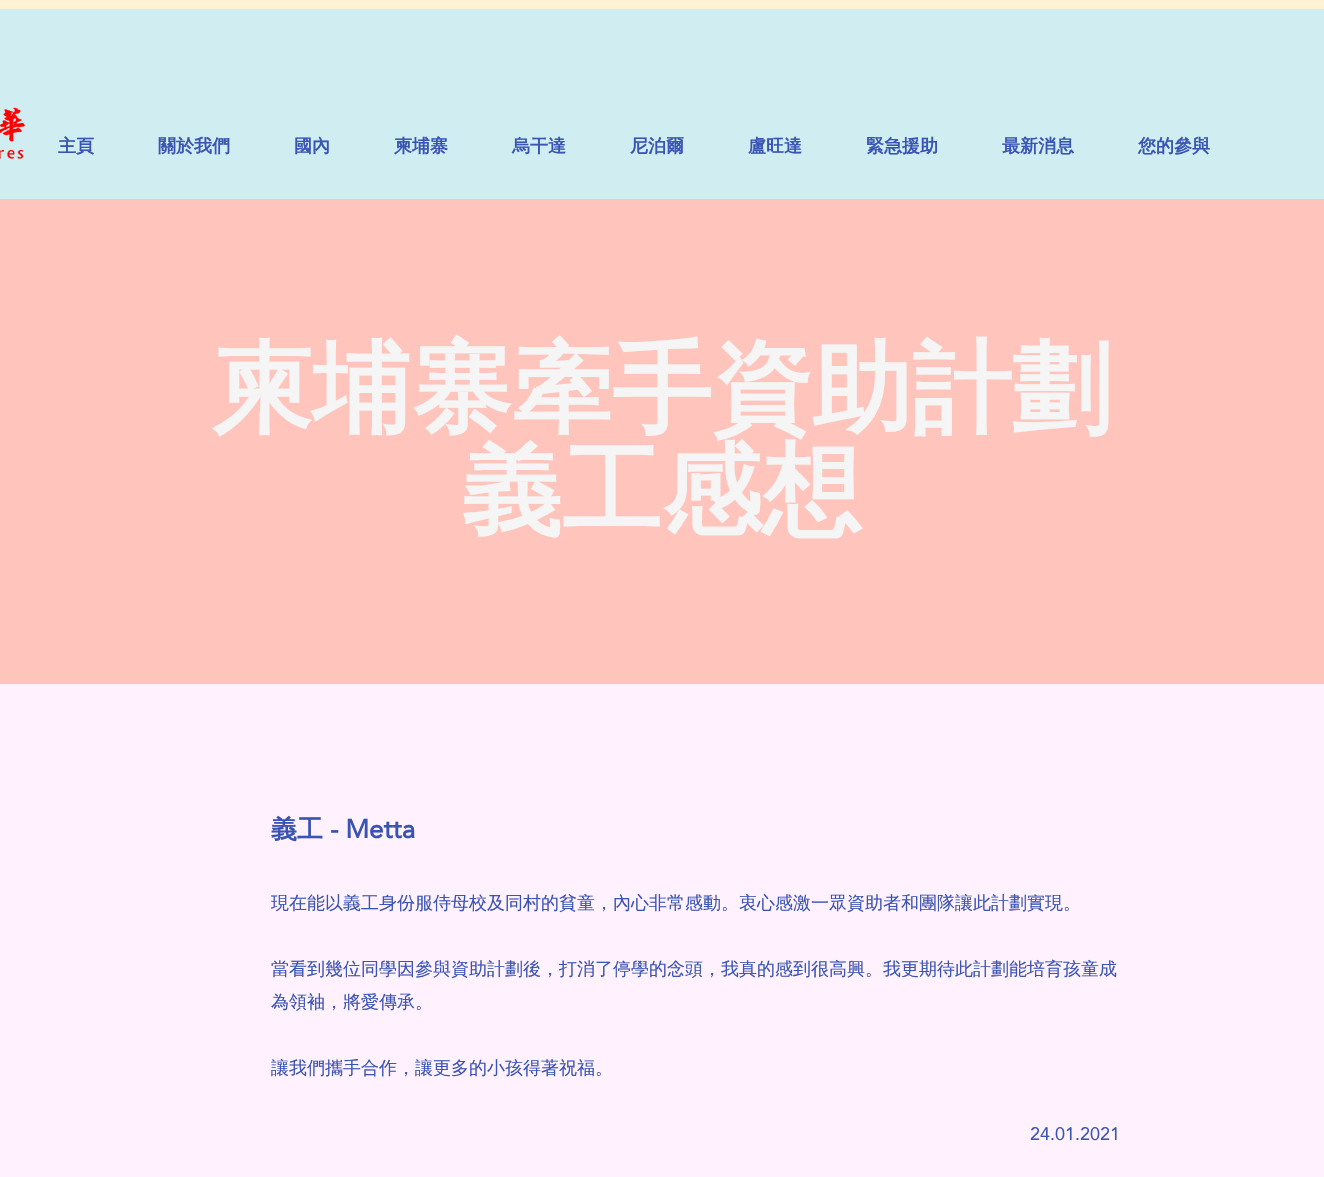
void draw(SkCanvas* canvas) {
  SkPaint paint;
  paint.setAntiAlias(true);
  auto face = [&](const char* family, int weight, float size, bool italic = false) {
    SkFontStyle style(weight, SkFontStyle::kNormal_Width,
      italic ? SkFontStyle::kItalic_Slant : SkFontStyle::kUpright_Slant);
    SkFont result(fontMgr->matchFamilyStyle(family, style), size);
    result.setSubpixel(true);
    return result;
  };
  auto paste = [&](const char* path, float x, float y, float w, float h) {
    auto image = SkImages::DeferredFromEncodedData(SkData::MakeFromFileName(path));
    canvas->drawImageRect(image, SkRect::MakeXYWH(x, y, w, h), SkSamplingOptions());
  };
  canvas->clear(0xffffc5bd);
  paint.setColor(0xfffff2d4);
  canvas->drawRect(SkRect::MakeXYWH(0, 0, 1324, 9), paint);
  paint.setColor(0xffd0edf2);
  canvas->drawRect(SkRect::MakeXYWH(0, 9, 1324, 190), paint);
  paste("img/1.png", 0, 107, 25, 52);
  paint.setColor(0xfffff2fe);
  canvas->drawRect(SkRect::MakeXYWH(0, 684, 1324, 493), paint);
  auto f0 = face("WenQuanYi Zen Hei", 700, 18);
  paint.setColor(0xff3a54b4);
  {
    const struct { const char* s; float x, y; } items[] = {
      {"主頁", 58, 152},
      {"關於我們", 158, 152},
      {"國內", 294, 152},
      {"柬埔寨", 394, 152},
      {"烏干達", 512, 152},
      {"尼泊爾", 630, 152},
      {"盧旺達", 748, 152},
      {"緊急援助", 866, 152},
      {"最新消息", 1002, 152},
      {"您的參與", 1138, 152},
    };
    for (auto [s, x, y] : items) {
      canvas->drawString(s, x, y, f0, paint);
    }
  }
  auto f1 = face("WenQuanYi Zen Hei", 700, 100);
  paint.setColor(0xfff5f5f5);
  canvas->drawString("柬埔寨牽手資助計劃", 212, 423, f1, paint);
  canvas->drawString("義工感想", 462, 525, f1, paint);
  auto f2 = face("WenQuanYi Zen Hei", 700, 26);
  paint.setColor(0xff3a54b4);
  canvas->drawString("義工", 271, 838, f2, paint);
  auto f3 = face("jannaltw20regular", 700, 26);
  canvas->drawString("- Metta", 330, 838, f3, paint);
  auto f4 = face("WenQuanYi Zen Hei", 500, 18);
  {
    const struct { const char* s; float x, y; } items[] = {
      {"現在能以義工身份服侍母校及同村的貧童，內心非常感動。衷心感激一眾資助者和團隊讓此計劃實現。", 271, 909},
      {"當看到幾位同學因參與資助計劃後，打消了停學的念頭，我真的感到很高興。我更期待此計劃能培育孩童成", 271, 975},
      {"為領袖，將愛傳承。", 271, 1008},
      {"讓我們攜手合作，讓更多的小孩得著祝福。", 271, 1074},
    };
    for (auto [s, x, y] : items) {
      canvas->drawString(s, x, y, f4, paint);
    }
  }
  auto f5 = face("jannaltw20regular", 400, 18);
  canvas->drawString("24.01.2021", 1030, 1140, f5, paint);
}
